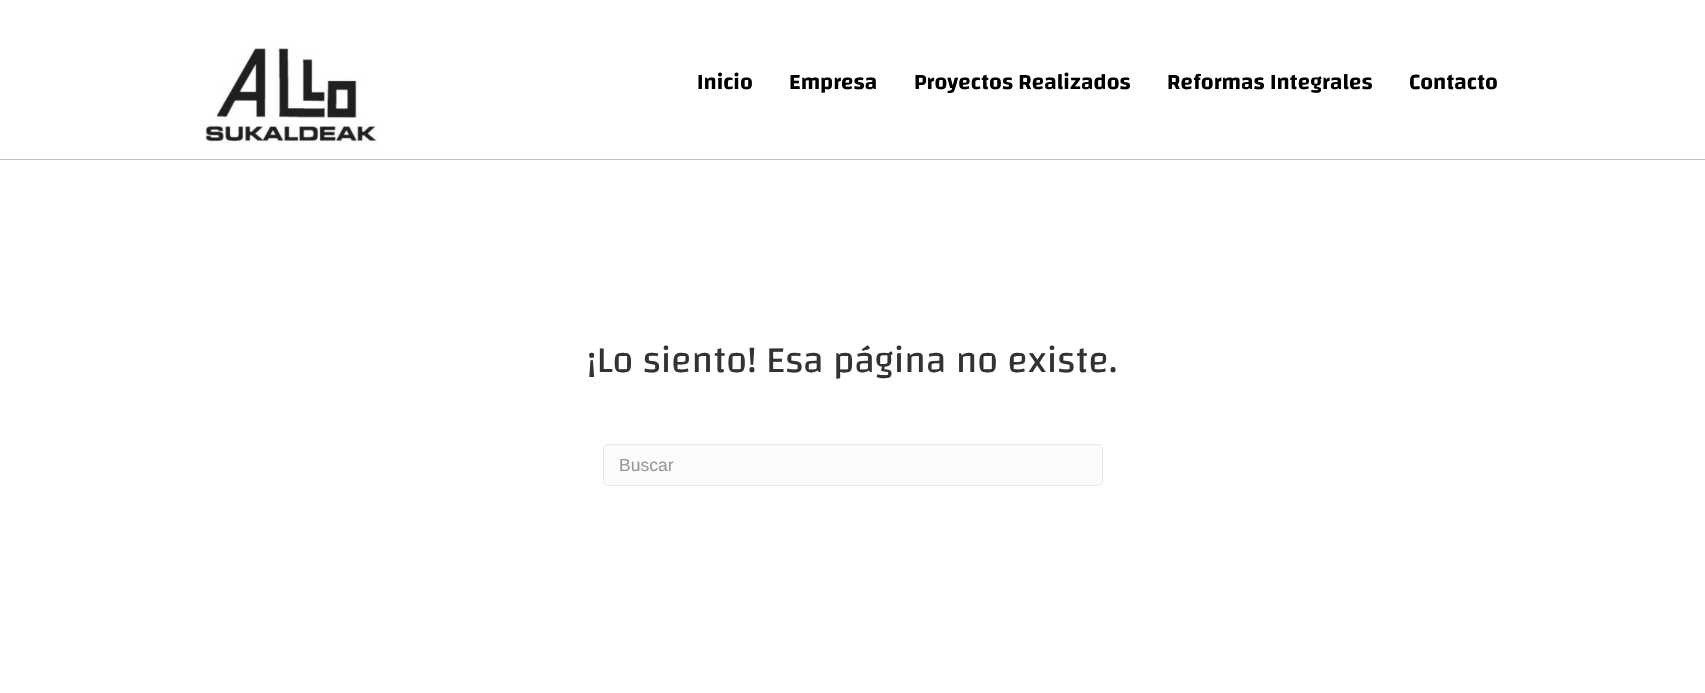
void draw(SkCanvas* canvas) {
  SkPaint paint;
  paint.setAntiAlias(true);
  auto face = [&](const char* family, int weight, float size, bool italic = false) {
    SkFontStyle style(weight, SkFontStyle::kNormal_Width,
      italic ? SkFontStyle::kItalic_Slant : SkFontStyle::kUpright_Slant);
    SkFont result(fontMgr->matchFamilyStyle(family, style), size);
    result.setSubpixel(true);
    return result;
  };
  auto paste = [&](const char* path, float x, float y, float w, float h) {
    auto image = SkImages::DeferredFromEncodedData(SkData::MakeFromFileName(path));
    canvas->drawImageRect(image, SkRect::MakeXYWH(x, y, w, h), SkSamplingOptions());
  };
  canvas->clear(0xffffffff);
  paint.setColor(0xffc1bfbf);
  canvas->drawRect(SkRect::MakeXYWH(0, 159, 1705, 1), paint);
  paste("img/1.png", 205, 45, 173, 100);
  paint.setColor(0xfffcfcfc);
  canvas->drawRoundRect(SkRect::MakeXYWH(603.5f, 444.5f, 499, 41), 4.5f, 4.5f, paint);
  paint.setStroke(true);
  paint.setStrokeWidth(1);
  paint.setColor(0xffe6e6e6);
  canvas->drawRoundRect(SkRect::MakeXYWH(603.5f, 444.5f, 499, 41), 4.5f, 4.5f, paint);
  auto f0 = face("Changa", 600, 22.5f);
  paint.setStroke(false);
  paint.setColor(0xff000000);
  {
    const struct { const char* s; float x, y; } items[] = {
      {"Inicio", 697, 89},
      {"Empresa", 789, 89},
      {"Proyectos Realizados", 914, 89},
      {"Reformas Integrales", 1167, 89},
      {"Contacto", 1409, 89},
    };
    for (auto [s, x, y] : items) {
      canvas->drawString(s, x, y, f0, paint);
    }
  }
  auto f1 = face("Changa", 400, 37.5f);
  paint.setColor(0xff333333);
  canvas->drawString("¡Lo siento! Esa página no existe.", 587, 372, f1, paint);
  auto f2 = face("Liberation Sans", 400, 17.5f);
  paint.setColor(0xff979797);
  canvas->drawString("Buscar", 619, 471, f2, paint);
}
